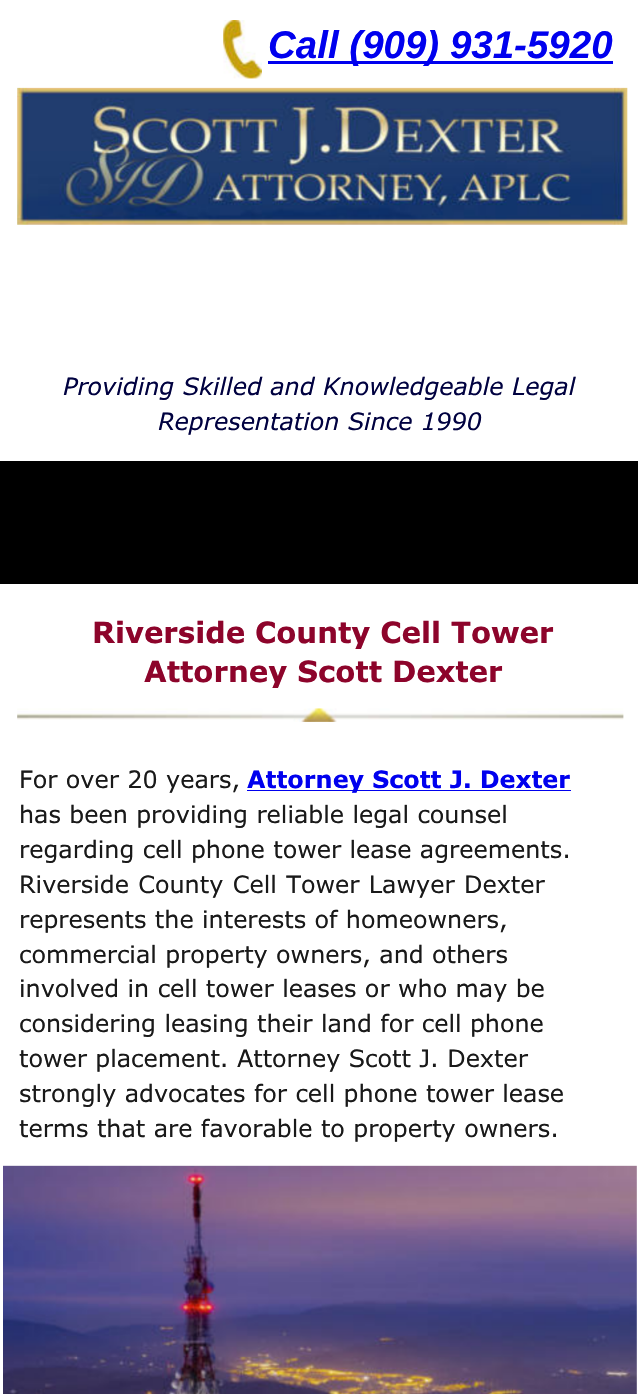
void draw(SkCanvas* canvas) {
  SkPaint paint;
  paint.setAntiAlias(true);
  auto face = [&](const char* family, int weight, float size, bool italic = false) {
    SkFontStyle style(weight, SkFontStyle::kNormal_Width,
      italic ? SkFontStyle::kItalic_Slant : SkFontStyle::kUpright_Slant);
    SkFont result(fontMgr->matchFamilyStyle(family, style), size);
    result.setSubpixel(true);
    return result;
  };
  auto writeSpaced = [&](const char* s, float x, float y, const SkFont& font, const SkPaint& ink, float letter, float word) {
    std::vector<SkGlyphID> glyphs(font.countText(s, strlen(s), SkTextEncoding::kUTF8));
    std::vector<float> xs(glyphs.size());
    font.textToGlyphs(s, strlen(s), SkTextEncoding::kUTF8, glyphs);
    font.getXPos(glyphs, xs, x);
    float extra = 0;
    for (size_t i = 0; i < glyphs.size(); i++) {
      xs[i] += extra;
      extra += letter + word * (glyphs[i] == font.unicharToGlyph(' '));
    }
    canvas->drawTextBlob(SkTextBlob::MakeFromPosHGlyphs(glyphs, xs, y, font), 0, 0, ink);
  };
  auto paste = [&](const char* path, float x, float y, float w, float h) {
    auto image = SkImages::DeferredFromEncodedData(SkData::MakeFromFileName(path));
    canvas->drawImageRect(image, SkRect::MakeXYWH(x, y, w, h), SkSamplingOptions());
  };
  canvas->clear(0xffffffff);
  paste("img/1.png", 223, 20, 39, 59);
  paint.setColor(0xff0000ee);
  canvas->drawRect(SkRect::MakeXYWH(268, 61, 345, 3), paint);
  paste("img/2.png", 17, 87, 611, 138);
  paint.setColor(0xff000000);
  canvas->drawRect(SkRect::MakeXYWH(0, 461, 638, 123), paint);
  paste("img/3.png", 17, 708, 607, 14);
  paint.setColor(0xff0000ee);
  canvas->drawRect(SkRect::MakeXYWH(247, 790, 324, 1), paint);
  paste("img/4.png", 3, 1165, 634, 229);
  auto f0 = face("Liberation Sans", 700, 38.5f, true);
  canvas->drawString("Call (909) 931-5920", 268, 58, f0, paint);
  auto f1 = face("Verdana", 400, 23.9f, true);
  paint.setColor(0xff000140);
  canvas->drawString("Providing Skilled and Knowledgeable Legal", 63, 395, f1, paint);
  canvas->drawString("Representation Since 1990", 158, 430, f1, paint);
  auto f2 = face("Verdana", 700, 29.25f);
  paint.setColor(0xff8d042b);
  canvas->drawString("Riverside County Cell Tower", 92, 643, f2, paint);
  canvas->drawString("Attorney Scott Dexter", 144, 682, f2, paint);
  auto f3 = face("Verdana", 400, 23.9f);
  paint.setColor(0xff191919);
  canvas->drawString("For over 20 years,", 19, 788, f3, paint);
  auto f4 = face("Verdana", 700, 23.9f);
  paint.setColor(0xff0000ee);
  canvas->drawString("Attorney Scott J. Dexter", 247, 788, f4, paint);
  paint.setColor(0xff191919);
  canvas->drawString("has been providing reliable legal counsel", 19, 823, f3, paint);
  canvas->drawString("regarding cell phone tower lease agreements.", 19, 858, f3, paint);
  writeSpaced("Riverside County Cell Tower Lawyer Dexter", 19, 893, f3, paint, 0, 1);
  {
    const struct { const char* s; float x, y; } items[] = {
      {"represents the interests of homeowners,", 19, 928},
      {"commercial property owners, and others", 19, 963},
      {"involved in cell tower leases or who may be", 19, 997},
      {"considering leasing their land for cell phone", 19, 1032},
      {"tower placement. Attorney Scott J. Dexter", 19, 1067},
      {"strongly advocates for cell phone tower lease", 19, 1102},
      {"terms that are favorable to property owners.", 19, 1137},
    };
    for (auto [s, x, y] : items) {
      canvas->drawString(s, x, y, f3, paint);
    }
  }
}
